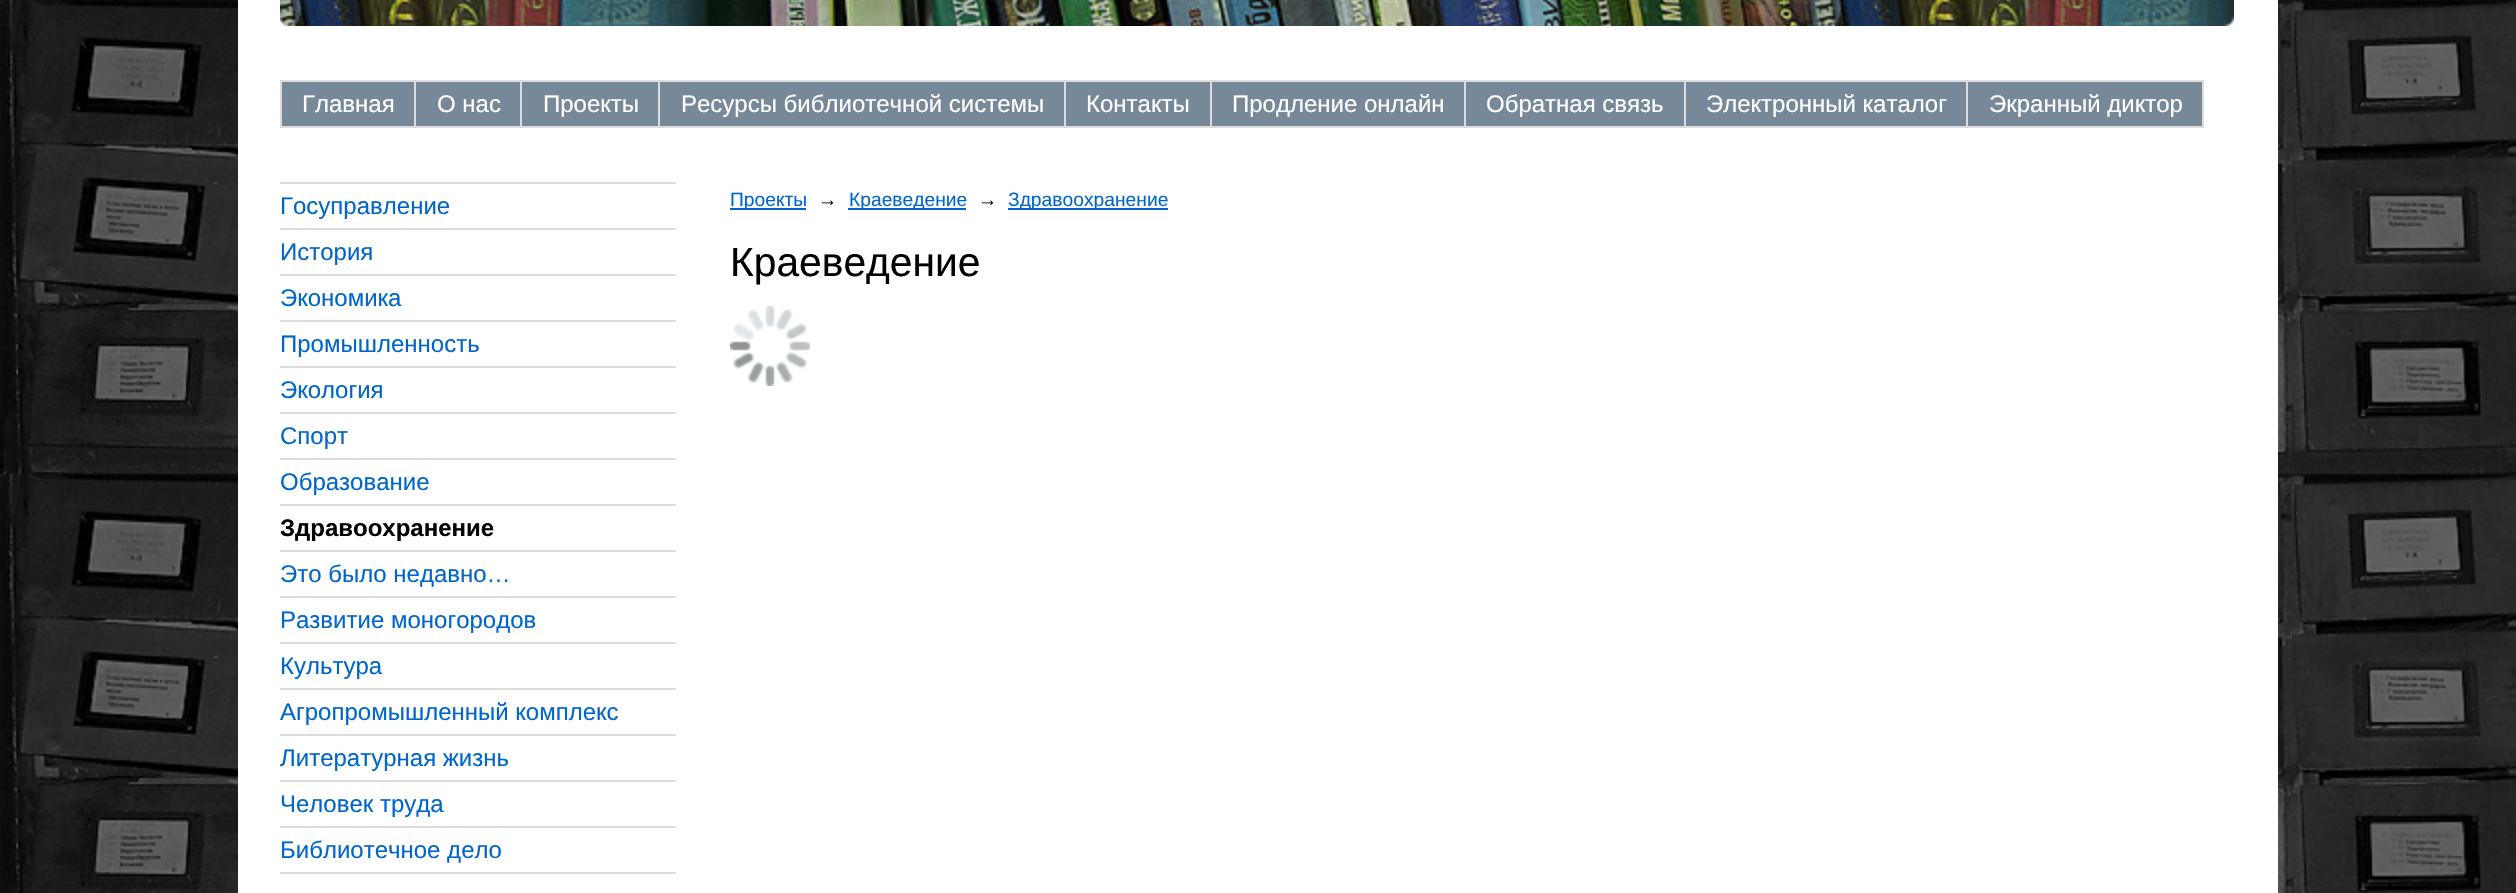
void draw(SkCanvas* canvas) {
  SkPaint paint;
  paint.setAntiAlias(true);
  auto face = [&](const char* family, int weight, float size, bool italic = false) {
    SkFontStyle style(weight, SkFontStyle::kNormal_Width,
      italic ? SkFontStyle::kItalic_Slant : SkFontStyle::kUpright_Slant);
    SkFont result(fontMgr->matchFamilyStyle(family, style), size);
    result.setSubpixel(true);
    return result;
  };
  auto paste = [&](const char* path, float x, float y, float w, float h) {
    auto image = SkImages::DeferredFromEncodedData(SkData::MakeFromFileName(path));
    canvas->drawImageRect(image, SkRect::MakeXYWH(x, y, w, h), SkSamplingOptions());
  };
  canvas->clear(0xffffffff);
  paste("img/1.png", 0, 0, 2516, 893);
  paint.setColor(0xffffffff);
  canvas->drawRect(SkRect::MakeXYWH(238, 0, 2040, 893), paint);
  paste("img/2.png", 280, 0, 1954, 26);
  paste("img/3.png", 280, 16, 10, 10);
  paste("img/4.png", 2224, 16, 10, 10);
  {
    const struct { float x, y, w, h; SkColor color; } items[] = {
      {280, 80, 2, 48, 0xffdcdcdc},
      {282, 82, 132, 44, 0xff778899},
      {282, 80, 1922, 2, 0xffdcdcdc},
      {414, 80, 2, 48, 0xffdcdcdc},
      {282, 126, 134, 2, 0xffdcdcdc},
      {416, 82, 104, 44, 0xff778899},
      {520, 80, 2, 48, 0xffdcdcdc},
      {416, 126, 106, 2, 0xffdcdcdc},
      {522, 82, 136, 44, 0xff778899},
      {658, 80, 2, 48, 0xffdcdcdc},
      {522, 126, 138, 2, 0xffdcdcdc},
      {660, 82, 404, 44, 0xff778899},
      {1064, 80, 2, 48, 0xffdcdcdc},
      {660, 126, 406, 2, 0xffdcdcdc},
      {1066, 82, 144, 44, 0xff778899},
      {1210, 80, 2, 48, 0xffdcdcdc},
      {1066, 126, 146, 2, 0xffdcdcdc},
      {1212, 82, 252, 44, 0xff778899},
      {1464, 80, 2, 48, 0xffdcdcdc},
      {1212, 126, 254, 2, 0xffdcdcdc},
      {1466, 82, 218, 44, 0xff778899},
      {1684, 80, 2, 48, 0xffdcdcdc},
      {1466, 126, 220, 2, 0xffdcdcdc},
      {1686, 82, 280, 44, 0xff778899},
      {1966, 80, 2, 48, 0xffdcdcdc},
      {1686, 126, 282, 2, 0xffdcdcdc},
      {1968, 82, 234, 44, 0xff778899},
      {2202, 80, 2, 48, 0xffdcdcdc},
      {1968, 126, 236, 2, 0xffdcdcdc},
      {280, 182, 396, 2, 0xffdcdcdc},
      {280, 228, 396, 2, 0xffdcdcdc},
      {280, 274, 396, 2, 0xffdcdcdc},
      {280, 320, 396, 2, 0xffdcdcdc},
      {280, 366, 396, 2, 0xffdcdcdc},
      {280, 412, 396, 2, 0xffdcdcdc},
      {280, 458, 396, 2, 0xffdcdcdc},
      {280, 504, 396, 2, 0xffdcdcdc},
      {280, 550, 396, 2, 0xffdcdcdc},
      {280, 596, 396, 2, 0xffdcdcdc},
      {280, 642, 396, 2, 0xffdcdcdc},
      {280, 688, 396, 2, 0xffdcdcdc},
      {280, 734, 396, 2, 0xffdcdcdc},
      {280, 780, 396, 2, 0xffdcdcdc},
      {280, 826, 396, 2, 0xffdcdcdc},
      {280, 872, 396, 2, 0xffdcdcdc},
      {730, 208, 76, 2, 0xff0066cc},
      {848, 208, 118, 2, 0xff0066cc},
      {1008, 208, 160, 2, 0xff0066cc},
    };
    for (auto [x, y, w, h, color] : items) {
      paint.setColor(color);
      canvas->drawRect(SkRect::MakeXYWH(x, y, w, h), paint);
    }
  }
  paste("img/5.png", 730, 306, 80, 80);
  auto f0 = face("Liberation Sans", 400, 24);
  paint.setColor(0xffffffff);
  {
    const struct { const char* s; float x, y; } items[] = {
      {"Главная", 302, 112},
      {"О нас", 437, 112},
      {"Проекты", 543, 112},
      {"Ресурсы библиотечной системы", 681, 112},
      {"Контакты", 1086, 112},
      {"Продление онлайн", 1232, 112},
      {"Обратная связь", 1486, 112},
      {"Электронный каталог", 1706, 112},
      {"Экранный диктор", 1989, 112},
    };
    for (auto [s, x, y] : items) {
      canvas->drawString(s, x, y, f0, paint);
    }
  }
  paint.setColor(0xff0066cc);
  {
    const struct { const char* s; float x, y; } items[] = {
      {"Госуправление", 280, 214},
      {"История", 280, 260},
      {"Экономика", 280, 306},
      {"Промышленность", 280, 352},
      {"Экология", 280, 398},
      {"Cпорт", 280, 444},
      {"Образование", 280, 490},
    };
    for (auto [s, x, y] : items) {
      canvas->drawString(s, x, y, f0, paint);
    }
  }
  auto f1 = face("Liberation Sans", 700, 24);
  paint.setColor(0xff000000);
  canvas->drawString("Здравоохранение", 280, 536, f1, paint);
  paint.setColor(0xff0066cc);
  {
    const struct { const char* s; float x, y; } items[] = {
      {"Это было недавно…", 280, 582},
      {"Развитие моногородов", 280, 628},
      {"Культура", 280, 674},
      {"Агропромышленный комплекс", 280, 720},
      {"Литературная жизнь", 280, 766},
      {"Человек труда", 280, 812},
      {"Библиотечное дело", 280, 858},
    };
    for (auto [s, x, y] : items) {
      canvas->drawString(s, x, y, f0, paint);
    }
  }
  auto f2 = face("Liberation Sans", 400, 19.25f);
  canvas->drawString("Проекты", 730, 206, f2, paint);
  paint.setColor(0xff000000);
  canvas->drawString("→", 818, 206, f2, paint);
  paint.setColor(0xff0066cc);
  canvas->drawString("Краеведение", 849, 206, f2, paint);
  paint.setColor(0xff000000);
  canvas->drawString("→", 978, 206, f2, paint);
  paint.setColor(0xff0066cc);
  canvas->drawString("Здравоохранение", 1008, 206, f2, paint);
  auto f3 = face("Liberation Sans", 400, 40.75f);
  paint.setColor(0xff000000);
  canvas->drawString("Краеведение", 730, 276, f3, paint);
}
